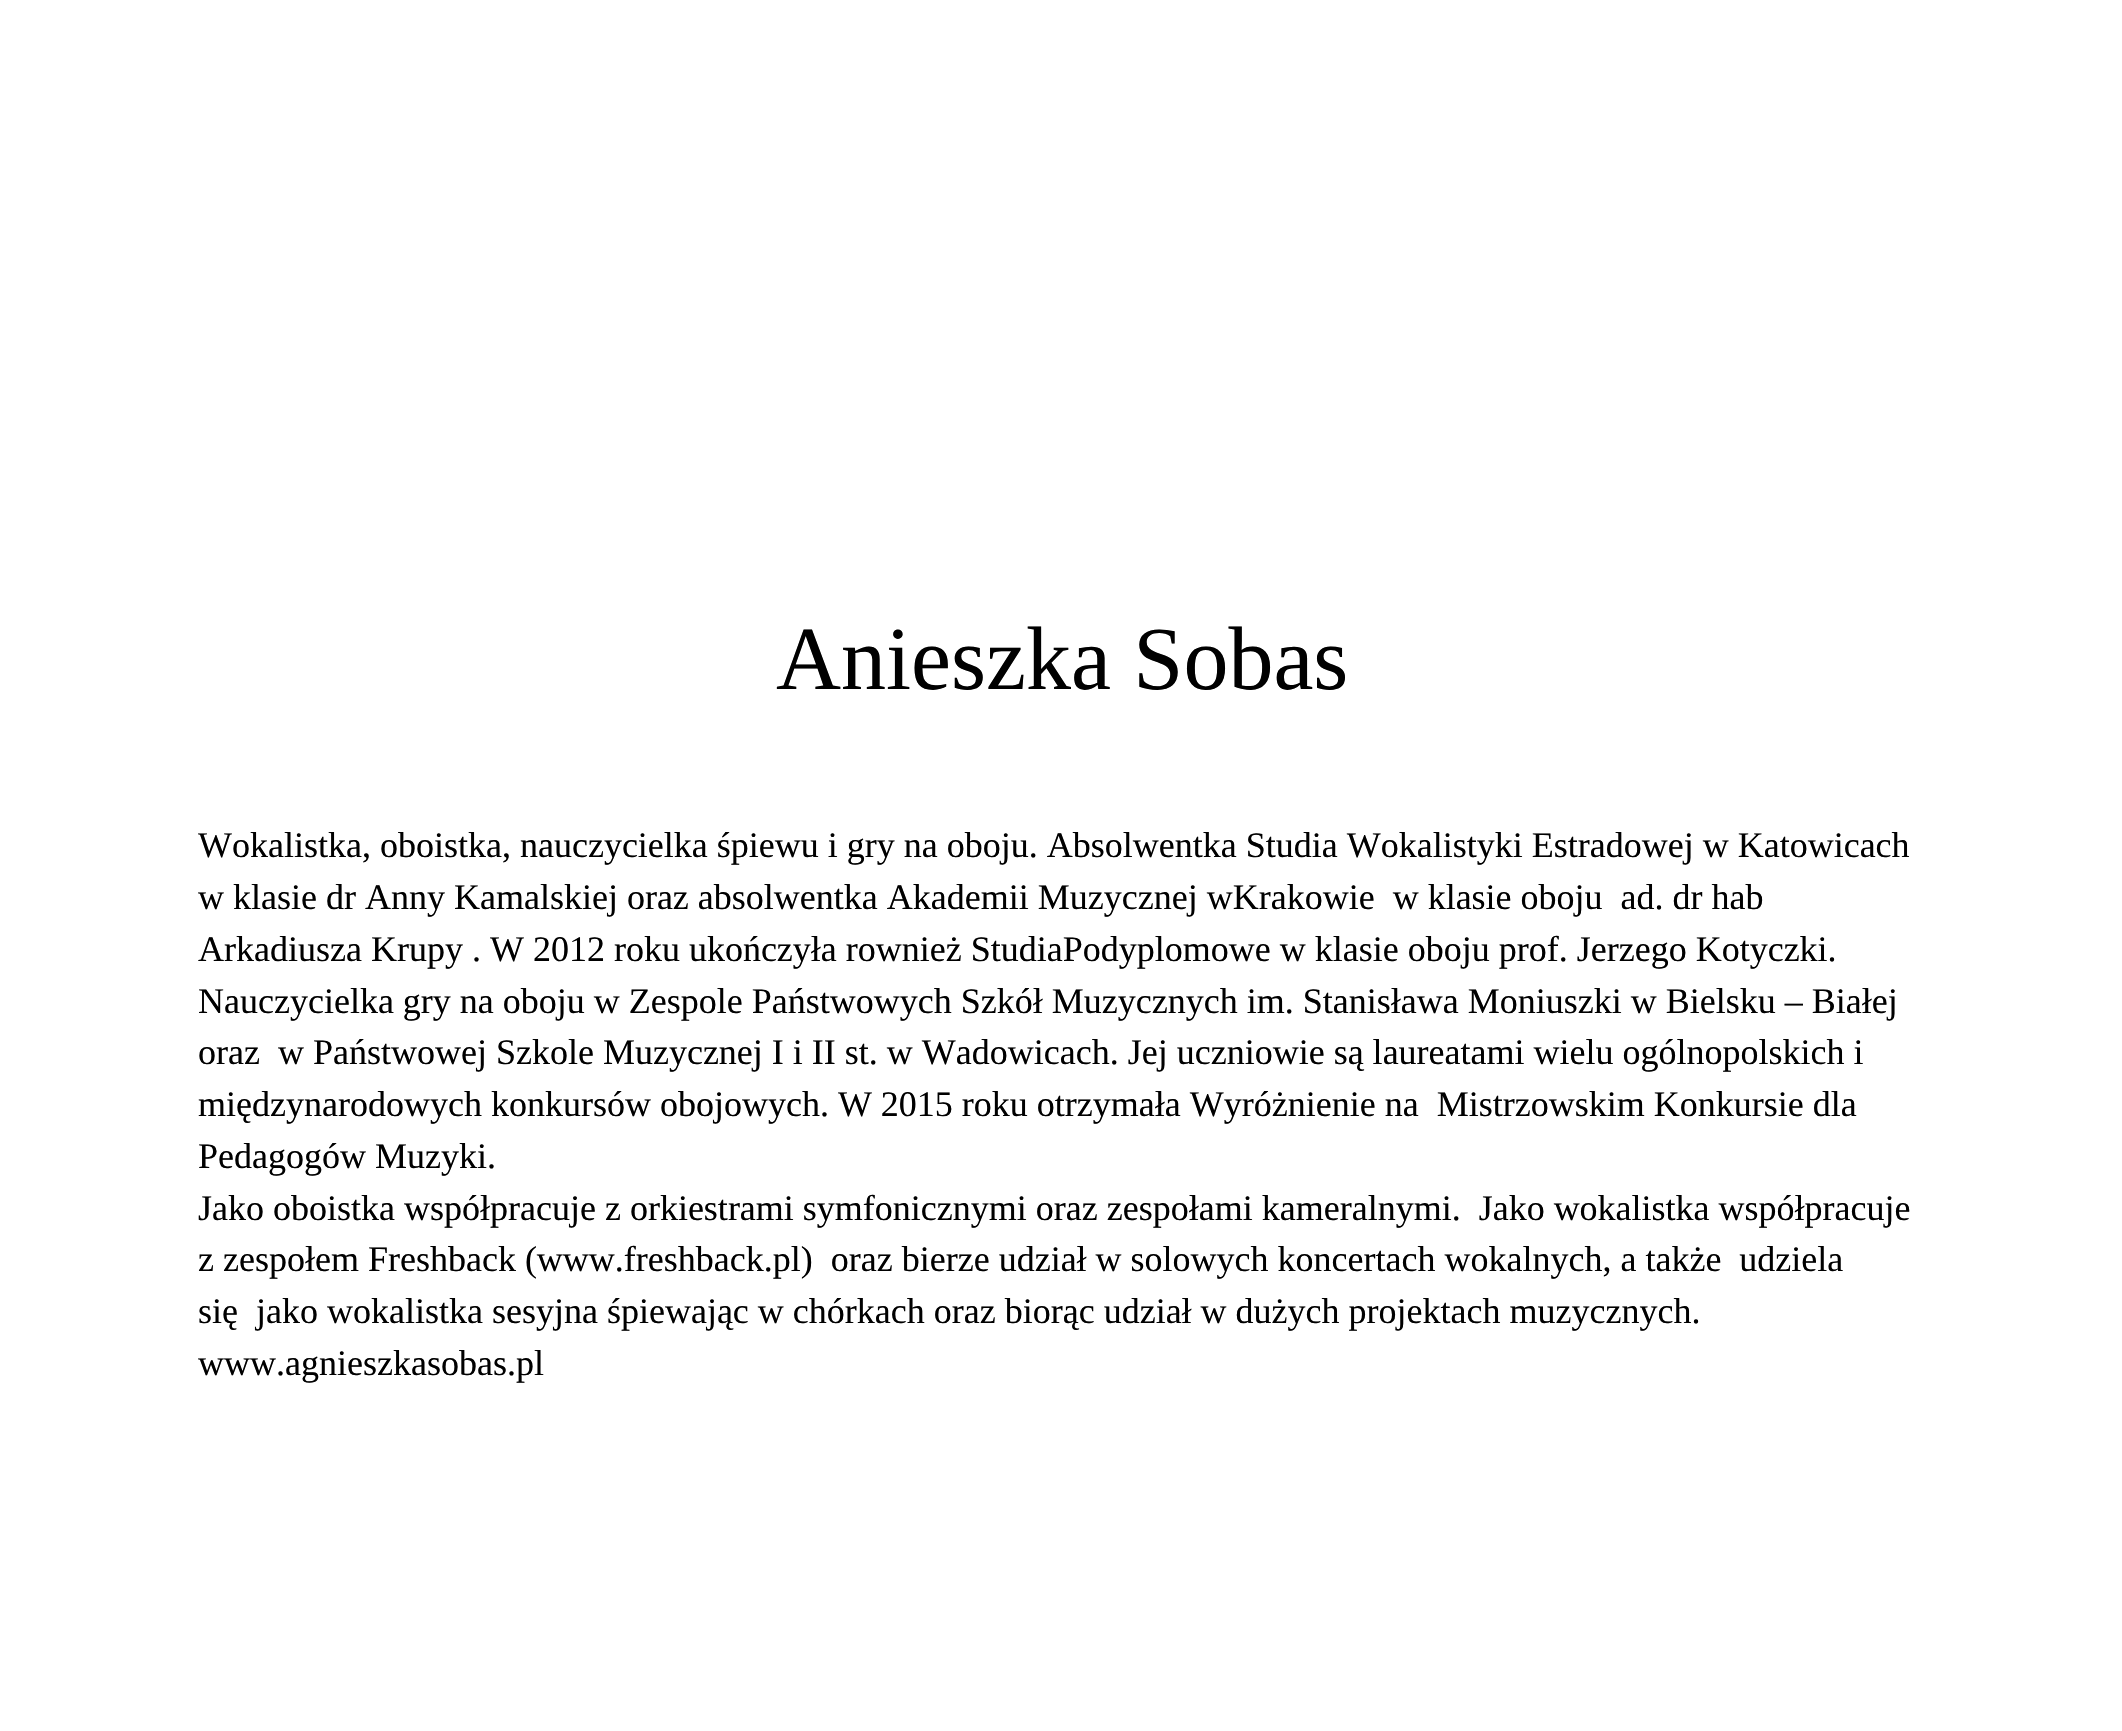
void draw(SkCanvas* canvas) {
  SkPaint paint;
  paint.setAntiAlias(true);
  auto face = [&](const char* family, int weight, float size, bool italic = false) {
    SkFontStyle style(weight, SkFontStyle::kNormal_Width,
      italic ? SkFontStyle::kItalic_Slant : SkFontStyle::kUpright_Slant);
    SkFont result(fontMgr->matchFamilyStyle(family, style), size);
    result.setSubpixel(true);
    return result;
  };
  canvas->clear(0xffffffff);
  auto f0 = face("Liberation Serif", 400, 90);
  paint.setColor(0xff000000);
  canvas->drawString("Anieszka Sobas", 776, 689, f0, paint);
  auto f1 = face("Liberation Serif", 400, 36);
  {
    const struct { const char* s; float x, y; } items[] = {
      {"Wokalistka, oboistka, nauczycielka śpiewu i gry na oboju. Absolwentka Studia Wokalistyki Estradowej w Katowicach", 198, 857},
      {"w klasie dr Anny Kamalskiej oraz absolwentka Akademii Muzycznej wKrakowie  w klasie oboju  ad. dr hab", 198, 909},
      {"Arkadiusza Krupy . W 2012 roku ukończyła rownież StudiaPodyplomowe w klasie oboju prof. Jerzego Kotyczki.", 198, 961},
      {"Nauczycielka gry na oboju w Zespole Państwowych Szkół Muzycznych im. Stanisława Moniuszki w Bielsku – Białej", 198, 1013},
      {"oraz  w Państwowej Szkole Muzycznej I i II st. w Wadowicach. Jej uczniowie są laureatami wielu ogólnopolskich i", 198, 1064},
      {"międzynarodowych konkursów obojowych. W 2015 roku otrzymała Wyróżnienie na  Mistrzowskim Konkursie dla", 198, 1116},
      {"Pedagogów Muzyki.", 198, 1168},
      {"Jako oboistka współpracuje z orkiestrami symfonicznymi oraz zespołami kameralnymi.  Jako wokalistka współpracuje", 198, 1220},
      {"z zespołem Freshback (www.freshback.pl)  oraz bierze udział w solowych koncertach wokalnych, a także  udziela", 198, 1271},
      {"się  jako wokalistka sesyjna śpiewając w chórkach oraz biorąc udział w dużych projektach muzycznych.", 198, 1323},
      {"www.agnieszkasobas.pl", 198, 1375},
    };
    for (auto [s, x, y] : items) {
      canvas->drawString(s, x, y, f1, paint);
    }
  }
}
